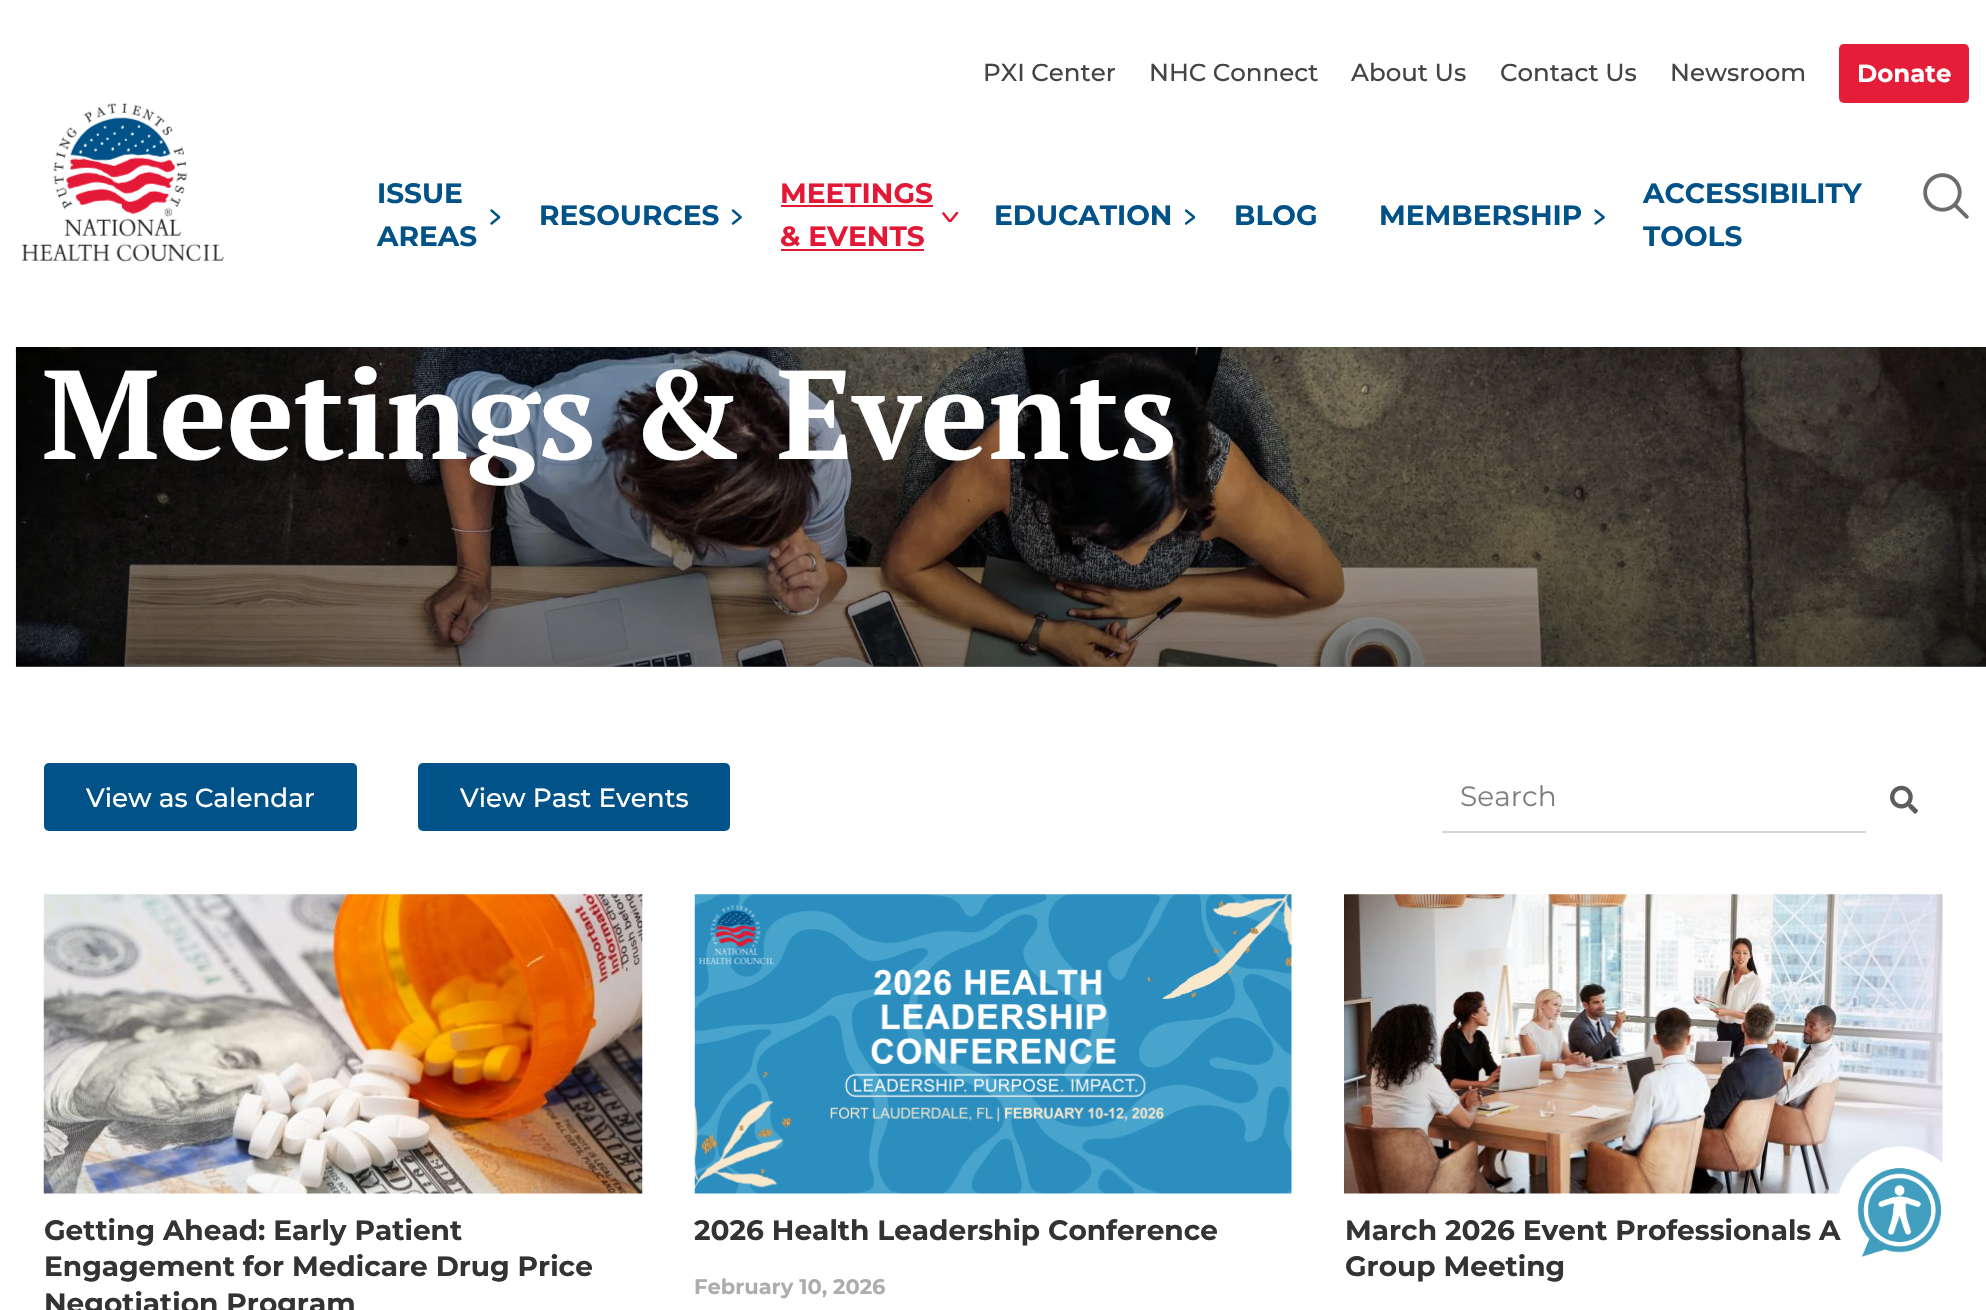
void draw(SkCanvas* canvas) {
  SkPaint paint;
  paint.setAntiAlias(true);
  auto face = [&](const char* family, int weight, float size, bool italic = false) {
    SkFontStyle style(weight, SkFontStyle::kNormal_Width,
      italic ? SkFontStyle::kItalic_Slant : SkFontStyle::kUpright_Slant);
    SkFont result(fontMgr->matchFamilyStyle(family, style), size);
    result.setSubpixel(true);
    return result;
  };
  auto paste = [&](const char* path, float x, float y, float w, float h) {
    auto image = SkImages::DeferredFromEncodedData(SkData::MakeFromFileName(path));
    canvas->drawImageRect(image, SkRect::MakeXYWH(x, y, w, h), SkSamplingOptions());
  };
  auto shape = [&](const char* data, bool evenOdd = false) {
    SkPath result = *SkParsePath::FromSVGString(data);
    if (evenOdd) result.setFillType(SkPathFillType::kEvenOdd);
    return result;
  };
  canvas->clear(0xffffffff);
  paste("img/1.png", 21, 103, 203, 159);
  paint.setColor(0xffe41d38);
  canvas->drawRoundRect(SkRect::MakeXYWH(1839, 44, 130, 59), 5, 5, paint);
  paint.setStroke(true);
  paint.setStrokeWidth(2.5f);
  paint.setStrokeCap(SkPaint::kRound_Cap);
  paint.setColor(0xff005288);
  canvas->drawPath(shape("M491.5 210.5L499 217V217.5L491.5 223.5"), paint);
  canvas->drawPath(shape("M733 210.5L740.5 217V217.5L733 223.5"), paint);
  paint.setStroke(false);
  paint.setColor(0xffe31837);
  canvas->drawRect(SkRect::MakeXYWH(781, 205, 152, 2), paint);
  canvas->save();
  canvas->clipRect(SkRect::MakeXYWH(942, 212, 17, 10));
  paint.setStroke(true);
  paint.setStrokeWidth(2.6f);
  canvas->drawPath(shape("M957 213L950.5 221H949.5L943.5 213.5"), paint);
  canvas->restore();
  paint.setStroke(false);
  canvas->drawRect(SkRect::MakeXYWH(781, 249, 143, 2), paint);
  canvas->save();
  canvas->clipRect(SkRect::MakeXYWH(1185, 208, 10, 18));
  paint.setStroke(true);
  paint.setStrokeWidth(2.5f);
  paint.setColor(0xff005288);
  canvas->drawPath(shape("M1186 210.5L1194 217V217.5L1186 223.5"), paint);
  canvas->restore();
  canvas->drawPath(shape("M1595.5 210.5L1603.5 217V217.5L1595.5 223.5"), paint);
  paste("img/2.png", 1923, 173, 46, 46);
  paste("img/3.png", 15, 347, 1971, 320);
  paint.setStroke(false);
  {
    const SkColor colors[] = {0x00000000, 0x80000000};
    const float stops[] = {0, 1};
    const SkPoint ends[] = {{1001, 278}, {1001, 667}};
    paint.setShader(SkGradientShader::MakeLinear(ends, colors, stops, 2, SkTileMode::kClamp));
    paint.setAlpha(255);
  }
  canvas->drawRect(SkRect::MakeXYWH(16, 347, 1970, 320), paint);
  paint.setShader(nullptr);
  paint.setColor(0xff005288);
  canvas->drawRoundRect(SkRect::MakeXYWH(44, 763, 313, 68), 5, 5, paint);
  canvas->drawRoundRect(SkRect::MakeXYWH(418, 763, 312, 68), 5, 5, paint);
  paint.setColor(0xffd5d5d5);
  canvas->drawRect(SkRect::MakeXYWH(1442, 831, 424, 2), paint);
  paste("img/4.png", 1890, 785, 28, 29);
  paste("img/5.png", 43, 894, 600, 300);
  paste("img/6.png", 694, 894, 598, 300);
  paste("img/7.png", 1344, 894, 599, 300);
  auto f0 = face("Montserrat", 500, 24.5f);
  paint.setColor(0xff444444);
  {
    const struct { const char* s; float x, y; } items[] = {
      {"PXI Center", 983, 81},
      {"NHC Connect", 1149, 81},
      {"About Us", 1351, 81},
      {"Contact Us", 1500, 81},
      {"Newsroom", 1670, 81},
    };
    for (auto [s, x, y] : items) {
      canvas->drawString(s, x, y, f0, paint);
    }
  }
  auto f1 = face("Montserrat", 700, 24.5f);
  paint.setColor(0xffffffff);
  canvas->drawString("Donate", 1857, 82, f1, paint);
  auto f2 = face("Montserrat", 700, 28);
  paint.setColor(0xff005288);
  {
    const struct { const char* s; float x, y; } items[] = {
      {"ISSUE", 377, 203},
      {"AREAS", 377, 246},
      {"RESOURCES", 539, 225},
    };
    for (auto [s, x, y] : items) {
      canvas->drawString(s, x, y, f2, paint);
    }
  }
  paint.setColor(0xffe31837);
  canvas->drawString("MEETINGS", 780, 203, f2, paint);
  canvas->drawString("& EVENTS", 780, 246, f2, paint);
  paint.setColor(0xff005288);
  {
    const struct { const char* s; float x, y; } items[] = {
      {"EDUCATION", 994, 225},
      {"BLOG", 1234, 225},
      {"MEMBERSHIP", 1379, 225},
      {"ACCESSIBILITY", 1643, 203},
      {"TOOLS", 1643, 246},
    };
    for (auto [s, x, y] : items) {
      canvas->drawString(s, x, y, f2, paint);
    }
  }
  auto f3 = face("PT Serif", 700, 126);
  paint.setColor(0xffffffff);
  canvas->drawString("Meetings & Events", 42, 459, f3, paint);
  auto f4 = face("Montserrat", 500, 26.25f);
  canvas->drawString("View as Calendar", 86, 807, f4, paint);
  canvas->drawString("View Past Events", 460, 807, f4, paint);
  auto f5 = face("Montserrat", 400, 28);
  paint.setColor(0xff808080);
  canvas->drawString("Search", 1460, 806, f5, paint);
  paint.setColor(0xff333333);
  {
    const struct { const char* s; float x, y; } items[] = {
      {"Getting Ahead: Early Patient", 44, 1240},
      {"Engagement for Medicare Drug Price", 44, 1276},
      {"Negotiation Program", 44, 1313},
      {"2026 Health Leadership Conference", 694, 1240},
    };
    for (auto [s, x, y] : items) {
      canvas->drawString(s, x, y, f2, paint);
    }
  }
  auto f6 = face("Montserrat", 700, 21);
  paint.setColor(0xffadadad);
  canvas->drawString("February 10, 2026", 694, 1294, f6, paint);
  paint.setColor(0xff333333);
  canvas->drawString("March 2026 Event Professionals A", 1345, 1240, f2, paint);
  canvas->drawString("Group Meeting", 1345, 1276, f2, paint);
  paste("img/8.png", 1839, 1146, 104, 111);
}
